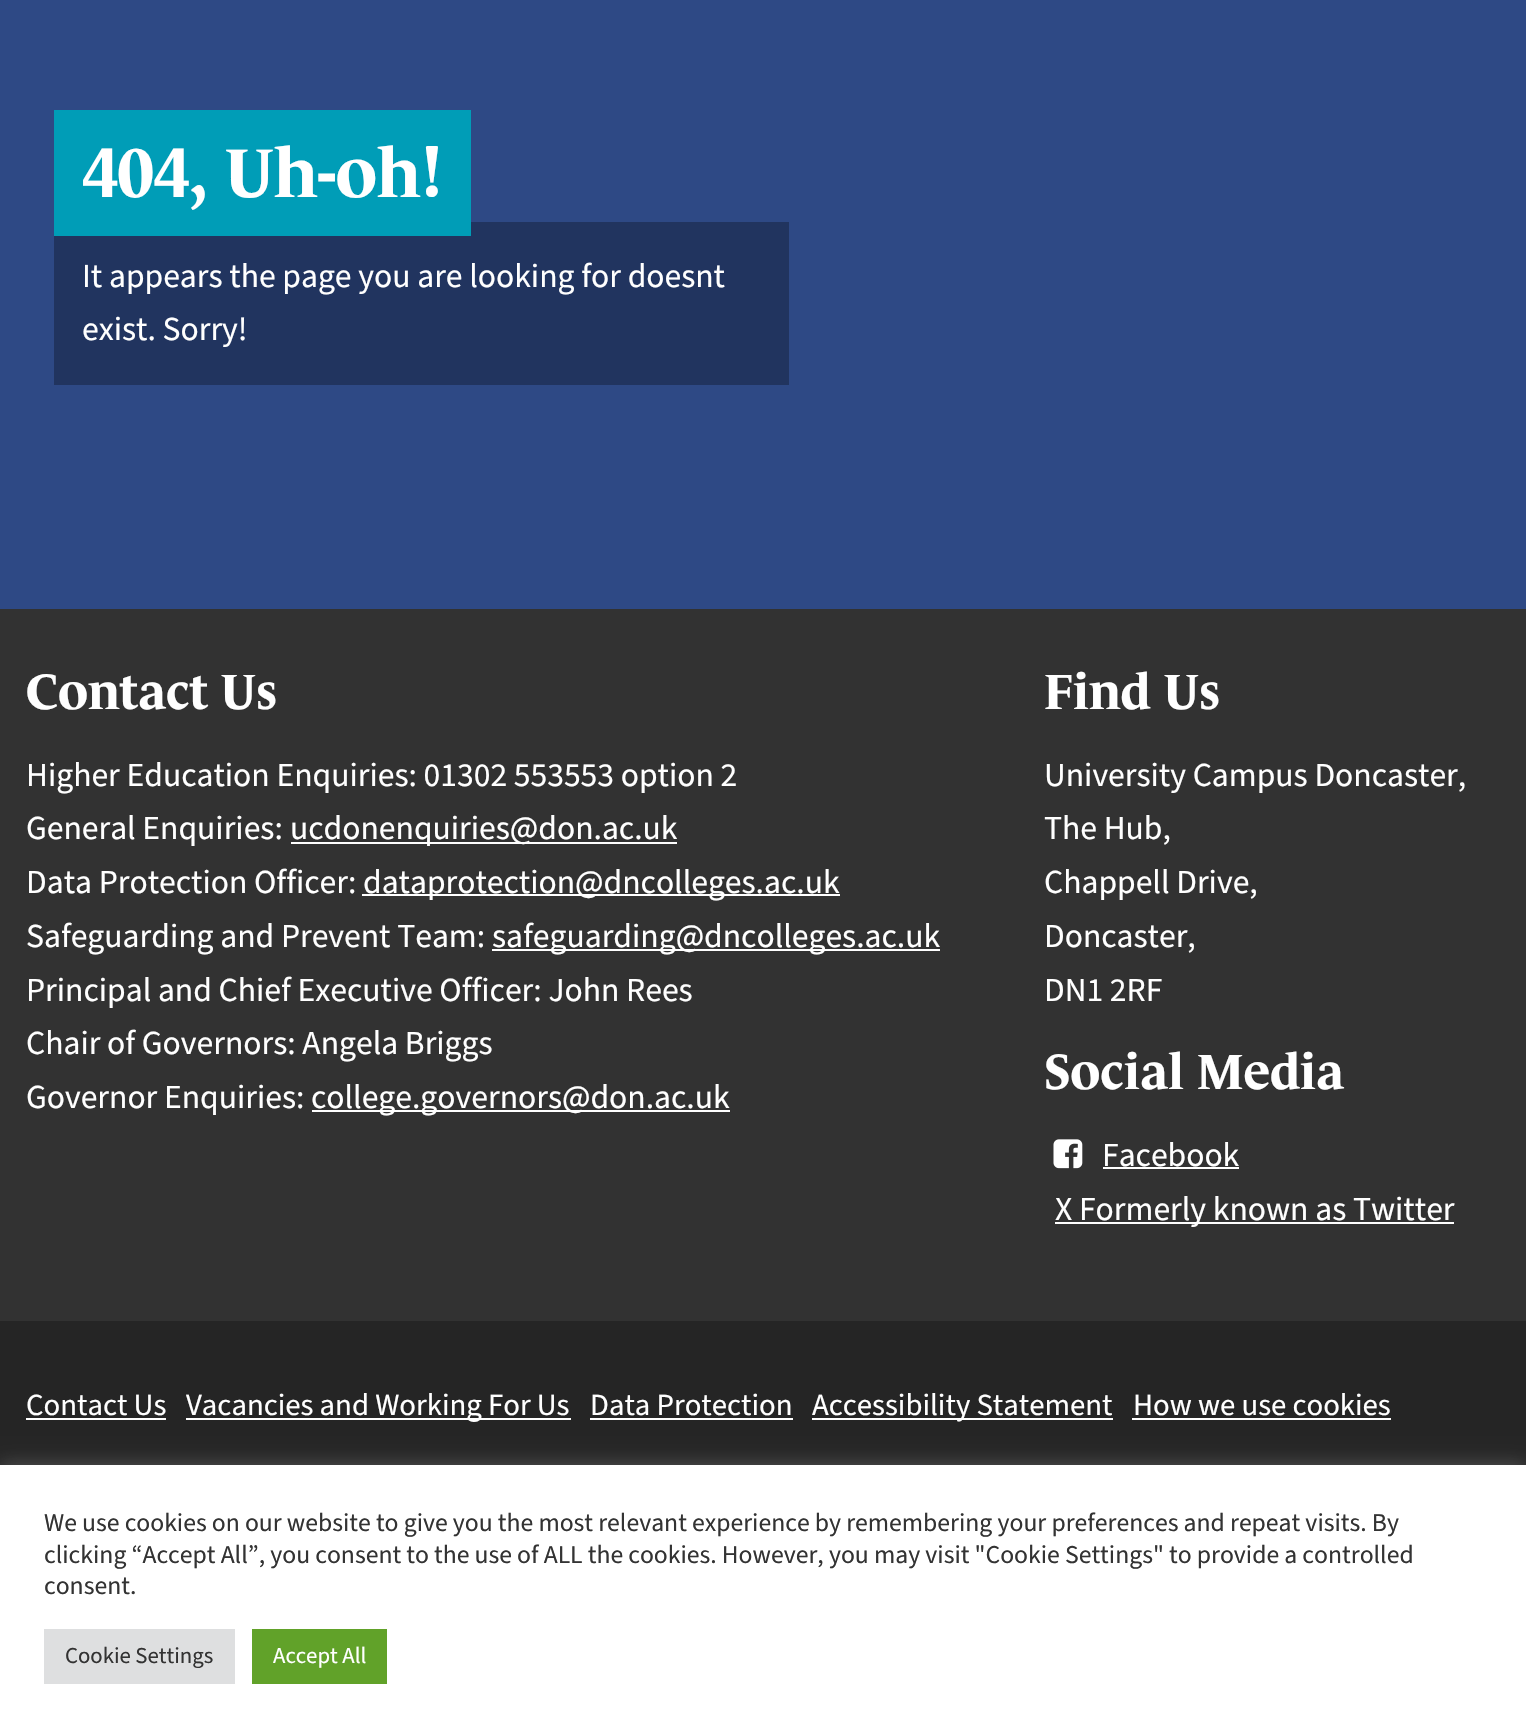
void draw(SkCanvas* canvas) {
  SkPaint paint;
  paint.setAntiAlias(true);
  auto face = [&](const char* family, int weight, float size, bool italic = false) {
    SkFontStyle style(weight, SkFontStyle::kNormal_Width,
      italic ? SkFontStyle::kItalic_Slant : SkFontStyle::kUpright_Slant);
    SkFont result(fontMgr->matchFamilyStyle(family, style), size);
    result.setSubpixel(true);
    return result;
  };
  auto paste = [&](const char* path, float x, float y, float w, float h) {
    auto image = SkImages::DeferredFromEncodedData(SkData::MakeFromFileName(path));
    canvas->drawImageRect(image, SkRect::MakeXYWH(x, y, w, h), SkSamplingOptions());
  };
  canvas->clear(0xff323232);
  {
    const struct { float x, y, w, h; SkColor color; } items[] = {
      {0, 0, 1526, 609, 0xff2e4985},
      {54, 222, 735, 163, 0xff21345f},
      {54, 110, 417, 126, 0xff009db7},
      {291, 842, 386, 2, 0xffffffff},
      {362, 894, 478, 2, 0xffffffff},
      {492, 949, 448, 2, 0xffffffff},
      {312, 1110, 418, 2, 0xffffffff},
    };
    for (auto [x, y, w, h, color] : items) {
      paint.setColor(color);
      canvas->drawRect(SkRect::MakeXYWH(x, y, w, h), paint);
    }
  }
  paste("img/1.png", 1053, 1139, 30, 30);
  {
    const struct { float x, y, w, h; SkColor color; } items[] = {
      {1103, 1167, 136, 2, 0xffffffff},
      {1055, 1222, 399, 2, 0xffffffff},
      {0, 1321, 1526, 144, 0xff252525},
      {26, 1418, 140, 2, 0xffffffff},
      {186, 1418, 385, 2, 0xffffffff},
      {590, 1418, 203, 2, 0xffffffff},
      {812, 1418, 301, 2, 0xffffffff},
      {1132, 1418, 259, 2, 0xffffffff},
    };
    for (auto [x, y, w, h, color] : items) {
      paint.setColor(color);
      canvas->drawRect(SkRect::MakeXYWH(x, y, w, h), paint);
    }
  }
  paint.setColor(0x4dacabab);
  paint.setMaskFilter(SkMaskFilter::MakeBlur(kNormal_SkBlurStyle, 9));
  canvas->drawRect(SkRect::MakeXYWH(0, 1463, 1526, 271), paint);
  paint.setMaskFilter(nullptr);
  {
    const struct { float x, y, w, h; SkColor color; } items[] = {
      {0, 1465, 1526, 270, 0xffffffff},
      {44, 1629, 191, 55, 0xffdedfe0},
      {252, 1629, 135, 55, 0xff61a229},
    };
    for (auto [x, y, w, h, color] : items) {
      paint.setColor(color);
      canvas->drawRect(SkRect::MakeXYWH(x, y, w, h), paint);
    }
  }
  auto f0 = face("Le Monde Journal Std", 700, 70);
  paint.setColor(0xffffffff);
  canvas->drawString("404, Uh-oh!", 82, 197, f0, paint);
  auto f1 = face("Source Sans Pro", 400, 33.6f);
  canvas->drawString("It appears the page you are looking for doesnt", 82, 287, f1, paint);
  canvas->drawString("exist. Sorry!", 82, 340, f1, paint);
  auto f2 = face("Le Monde Journal Std", 700, 50.5f);
  canvas->drawString("Contact Us", 26, 709, f2, paint);
  {
    const struct { const char* s; float x, y; } items[] = {
      {"Higher Education Enquiries: 01302 553553 option 2", 26, 786},
      {"General Enquiries:", 26, 839},
      {"ucdonenquiries@don.ac.uk", 290, 839},
      {"Data Protection Officer:", 26, 893},
      {"dataprotection@dncolleges.ac.uk", 363, 893},
      {"Safeguarding and Prevent Team:", 26, 947},
      {"safeguarding@dncolleges.ac.uk", 492, 947},
      {"Principal and Chief Executive Officer: John Rees", 26, 1001},
      {"Chair of Governors: Angela Briggs", 26, 1054},
      {"Governor Enquiries:", 26, 1108},
      {"college.governors@don.ac.uk", 311, 1108},
    };
    for (auto [s, x, y] : items) {
      canvas->drawString(s, x, y, f1, paint);
    }
  }
  canvas->drawString("Find Us", 1044, 709, f2, paint);
  {
    const struct { const char* s; float x, y; } items[] = {
      {"University Campus Doncaster,", 1044, 786},
      {"The Hub,", 1044, 839},
      {"Chappell Drive,", 1044, 893},
      {"Doncaster,", 1044, 947},
      {"DN1 2RF", 1044, 1001},
    };
    for (auto [s, x, y] : items) {
      canvas->drawString(s, x, y, f1, paint);
    }
  }
  canvas->drawString("Social Media", 1044, 1089, f2, paint);
  canvas->drawString("Facebook", 1102, 1166, f1, paint);
  canvas->drawString("X Formerly known as Twitter", 1055, 1220, f1, paint);
  auto f3 = face("Source Sans Pro", 400, 30.75f);
  {
    const struct { const char* s; float x, y; } items[] = {
      {"Contact Us", 26, 1415},
      {"Vacancies and Working For Us", 186, 1415},
      {"Data Protection", 590, 1415},
      {"Accessibility Statement", 812, 1415},
      {"How we use cookies", 1133, 1415},
    };
    for (auto [s, x, y] : items) {
      canvas->drawString(s, x, y, f3, paint);
    }
  }
  auto f4 = face("Source Sans Pro", 400, 25.67f);
  paint.setColor(0xff333333);
  {
    const struct { const char* s; float x, y; } items[] = {
      {"We use cookies on our website to give you the most relevant experience by remembering your preferences and repeat visits. By", 44, 1531},
      {"clicking “Accept All”, you consent to the use of ALL the cookies. However, you may visit \"Cookie Settings\" to provide a controlled", 44, 1563},
      {"consent.", 44, 1594},
    };
    for (auto [s, x, y] : items) {
      canvas->drawString(s, x, y, f4, paint);
    }
  }
  auto f5 = face("Source Sans Pro", 400, 22.75f);
  canvas->drawString("Cookie Settings", 65, 1663, f5, paint);
  paint.setColor(0xffffffff);
  canvas->drawString("Accept All", 273, 1663, f5, paint);
}
